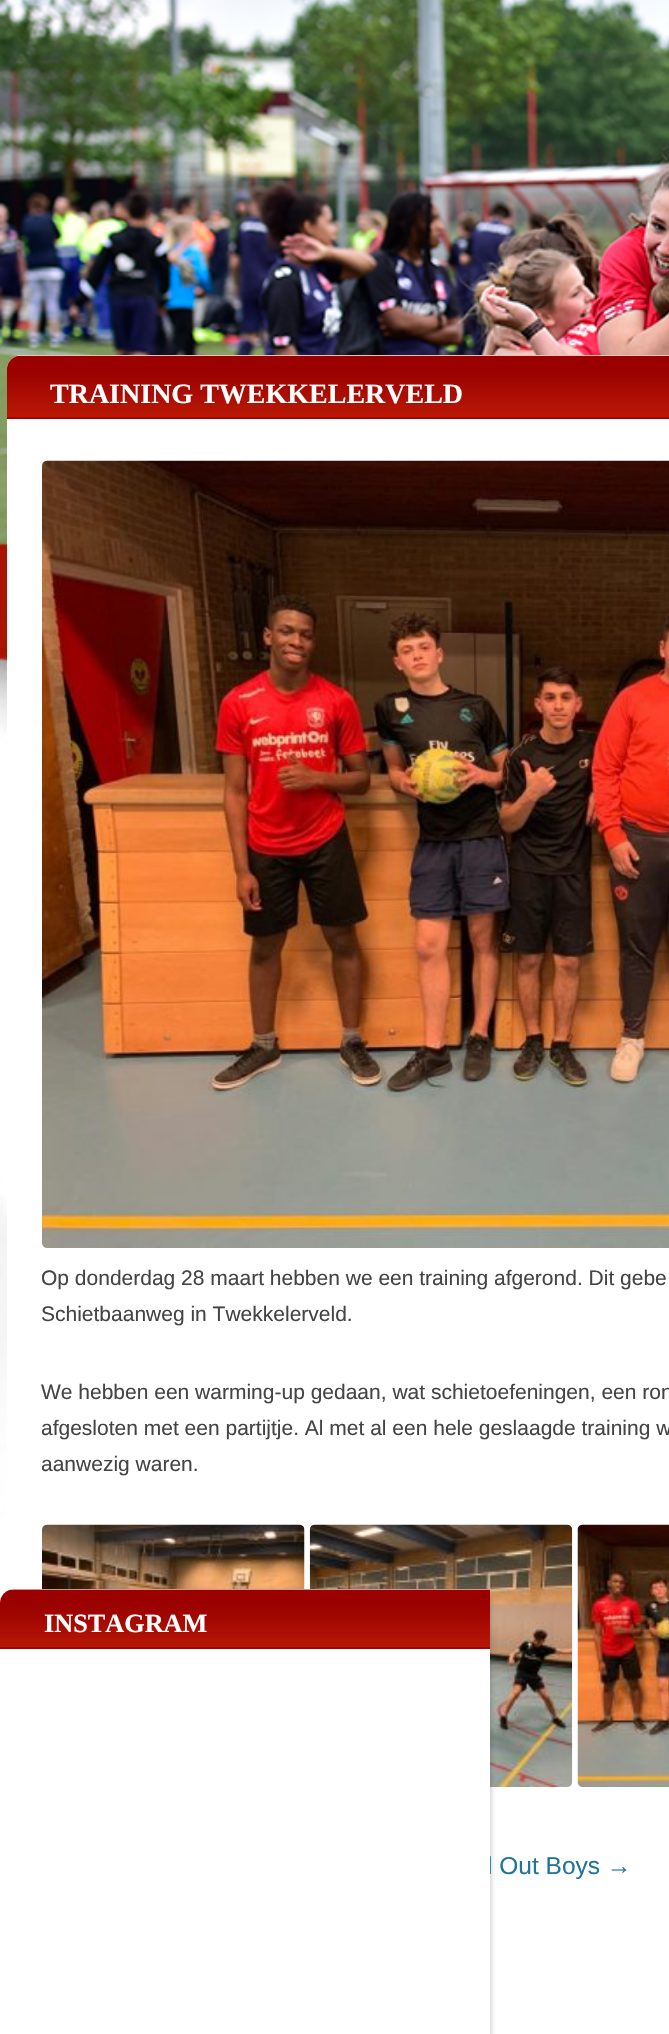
void draw(SkCanvas* canvas) {
  SkPaint paint;
  paint.setAntiAlias(true);
  auto face = [&](const char* family, int weight, float size, bool italic = false) {
    SkFontStyle style(weight, SkFontStyle::kNormal_Width,
      italic ? SkFontStyle::kItalic_Slant : SkFontStyle::kUpright_Slant);
    SkFont result(fontMgr->matchFamilyStyle(family, style), size);
    result.setSubpixel(true);
    return result;
  };
  auto paste = [&](const char* path, float x, float y, float w, float h) {
    auto image = SkImages::DeferredFromEncodedData(SkData::MakeFromFileName(path));
    canvas->drawImageRect(image, SkRect::MakeXYWH(x, y, w, h), SkSamplingOptions());
  };
  auto shape = [&](const char* data, bool evenOdd = false) {
    SkPath result = *SkParsePath::FromSVGString(data);
    if (evenOdd) result.setFillType(SkPathFillType::kEvenOdd);
    return result;
  };
  canvas->clear(0xffffffff);
  paste("img/1.png", 0, 541, 7, 977);
  paste("img/2.png", 0, 0, 669, 547);
  paint.setColor(0xffffffff);
  canvas->drawPath(shape("M21 355H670V1890H7V369C7 361.5 13.5 355 21 355Z"), paint);
  paste("img/3.png", 7, 355, 662, 62);
  paint.setColor(0xffa00501);
  canvas->drawRect(SkRect::MakeXYWH(7, 417, 662, 2), paint);
  paste("img/4.png", 42, 460, 627, 788);
  paste("img/5.png", 42, 1524, 263, 65);
  paste("img/6.png", 309, 1524, 264, 263);
  paste("img/7.png", 577, 1524, 92, 263);
  canvas->save();
  canvas->clipPath(shape("M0 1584H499V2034H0ZM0 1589H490V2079C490 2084 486 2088 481 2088H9C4 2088 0 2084 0 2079Z", true), true);
  paint.setColor(0x33323232);
  paint.setMaskFilter(SkMaskFilter::MakeBlur(kNormal_SkBlurStyle, 2));
  canvas->drawRoundRect(SkRect::MakeXYWH(2, 1591, 490, 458), 9, 9, paint);
  paint.setMaskFilter(nullptr);
  canvas->restore();
  auto f0 = face("Liberation Serif", 700, 28);
  paint.setColor(0xffffffff);
  canvas->drawString("TRAINING TWEKKELERVELD", 50, 403, f0, paint);
  auto f1 = face("Liberation Sans", 400, 21);
  paint.setColor(0xff444444);
  {
    const struct { const char* s; float x, y; } items[] = {
      {"Op donderdag 28 maart hebben we een training afgerond. Dit gebe", 41, 1285},
      {"Schietbaanweg in Twekkelerveld.", 41, 1321},
      {"We hebben een warming-up gedaan, wat schietoefeningen, een ron", 41, 1399},
      {"afgesloten met een partijtje. Al met al een hele geslaagde training w", 41, 1435},
      {"aanwezig waren.", 41, 1471},
    };
    for (auto [s, x, y] : items) {
      canvas->drawString(s, x, y, f1, paint);
    }
  }
  auto f2 = face("Liberation Sans", 400, 24.5f);
  paint.setColor(0xff21759b);
  canvas->drawString("l Out Boys →", 487, 1874, f2, paint);
  paint.setColor(0xffffffff);
  canvas->drawPath(shape("M14 1589H490V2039C490 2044 486 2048 481 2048H9C4 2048 0 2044 0 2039V1603C0 1595.5 6.5 1589 14 1589Z"), paint);
  paste("img/8.png", 0, 1589, 490, 58);
  paint.setColor(0xffa00501);
  canvas->drawRect(SkRect::MakeXYWH(0, 1647, 490, 2), paint);
  auto f3 = face("Liberation Serif", 700, 26.25f);
  paint.setColor(0xffffffff);
  canvas->drawString("INSTAGRAM", 44, 1632, f3, paint);
}
